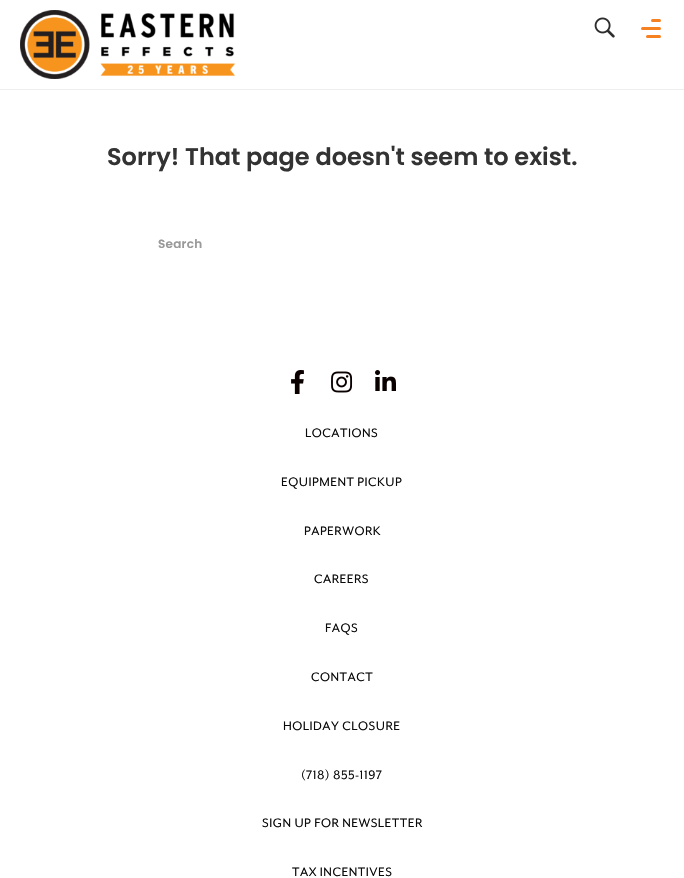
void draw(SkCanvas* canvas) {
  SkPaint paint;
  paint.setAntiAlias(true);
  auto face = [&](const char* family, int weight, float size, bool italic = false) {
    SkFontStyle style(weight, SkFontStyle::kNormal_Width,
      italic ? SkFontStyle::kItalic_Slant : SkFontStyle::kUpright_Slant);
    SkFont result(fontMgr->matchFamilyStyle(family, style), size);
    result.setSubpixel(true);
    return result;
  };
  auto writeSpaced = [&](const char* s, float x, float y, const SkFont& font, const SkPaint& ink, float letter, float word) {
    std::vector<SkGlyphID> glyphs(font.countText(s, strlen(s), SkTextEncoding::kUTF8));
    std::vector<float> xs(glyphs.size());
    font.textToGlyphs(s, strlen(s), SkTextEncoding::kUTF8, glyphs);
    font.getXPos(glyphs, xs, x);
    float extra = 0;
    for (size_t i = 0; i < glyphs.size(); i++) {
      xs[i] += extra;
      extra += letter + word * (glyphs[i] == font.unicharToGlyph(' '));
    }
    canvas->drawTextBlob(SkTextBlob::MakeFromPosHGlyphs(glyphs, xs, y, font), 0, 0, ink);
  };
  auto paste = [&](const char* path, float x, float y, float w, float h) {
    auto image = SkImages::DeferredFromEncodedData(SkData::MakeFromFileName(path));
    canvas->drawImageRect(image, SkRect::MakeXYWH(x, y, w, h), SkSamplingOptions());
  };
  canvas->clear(0xffffffff);
  paint.setColor(0xffeeeeee);
  canvas->drawRect(SkRect::MakeXYWH(0, 89, 684, 1), paint);
  paste("img/1.png", 20, 10, 215, 69);
  paste("img/2.png", 594, 17, 21, 21);
  paint.setColor(0xfff68121);
  canvas->drawRoundRect(SkRect::MakeXYWH(641, 27, 20, 3), 1.5f, 1.5f, paint);
  canvas->drawRoundRect(SkRect::MakeXYWH(651, 19, 10, 3), 1.5f, 1.5f, paint);
  canvas->drawRoundRect(SkRect::MakeXYWH(646, 35, 15, 3), 1.5f, 1.5f, paint);
  paste("img/3.png", 291, 370, 13, 24);
  paste("img/4.png", 331, 371, 22, 22);
  paste("img/5.png", 375, 370, 21, 21);
  auto f0 = face("Poppins", 600, 24);
  paint.setColor(0xff333333);
  canvas->drawString("Sorry! That page doesn't seem to exist.", 107, 165, f0, paint);
  auto f1 = face("Poppins", 600, 12);
  paint.setColor(0xff999999);
  writeSpaced("Search", 158, 248, f1, paint, 0.25f, 0);
  auto f2 = face("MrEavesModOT", 400, 14);
  paint.setColor(0xff0a0a0a);
  {
    const struct { const char* s; float x, y; } items[] = {
      {"LOCATIONS", 305, 437},
      {"EQUIPMENT PICKUP", 281, 486},
      {"PAPERWORK", 304, 535},
      {"CAREERS", 314, 583},
      {"FAQS", 325, 632},
      {"CONTACT", 311, 681},
      {"HOLIDAY CLOSURE", 283, 730},
      {"(718) 855-1197", 301, 779},
      {"SIGN UP FOR NEWSLETTER", 262, 827},
      {"TAX INCENTIVES", 292, 876},
    };
    for (auto [s, x, y] : items) {
      writeSpaced(s, x, y, f2, paint, 0.5f, 0);
    }
  }
}
